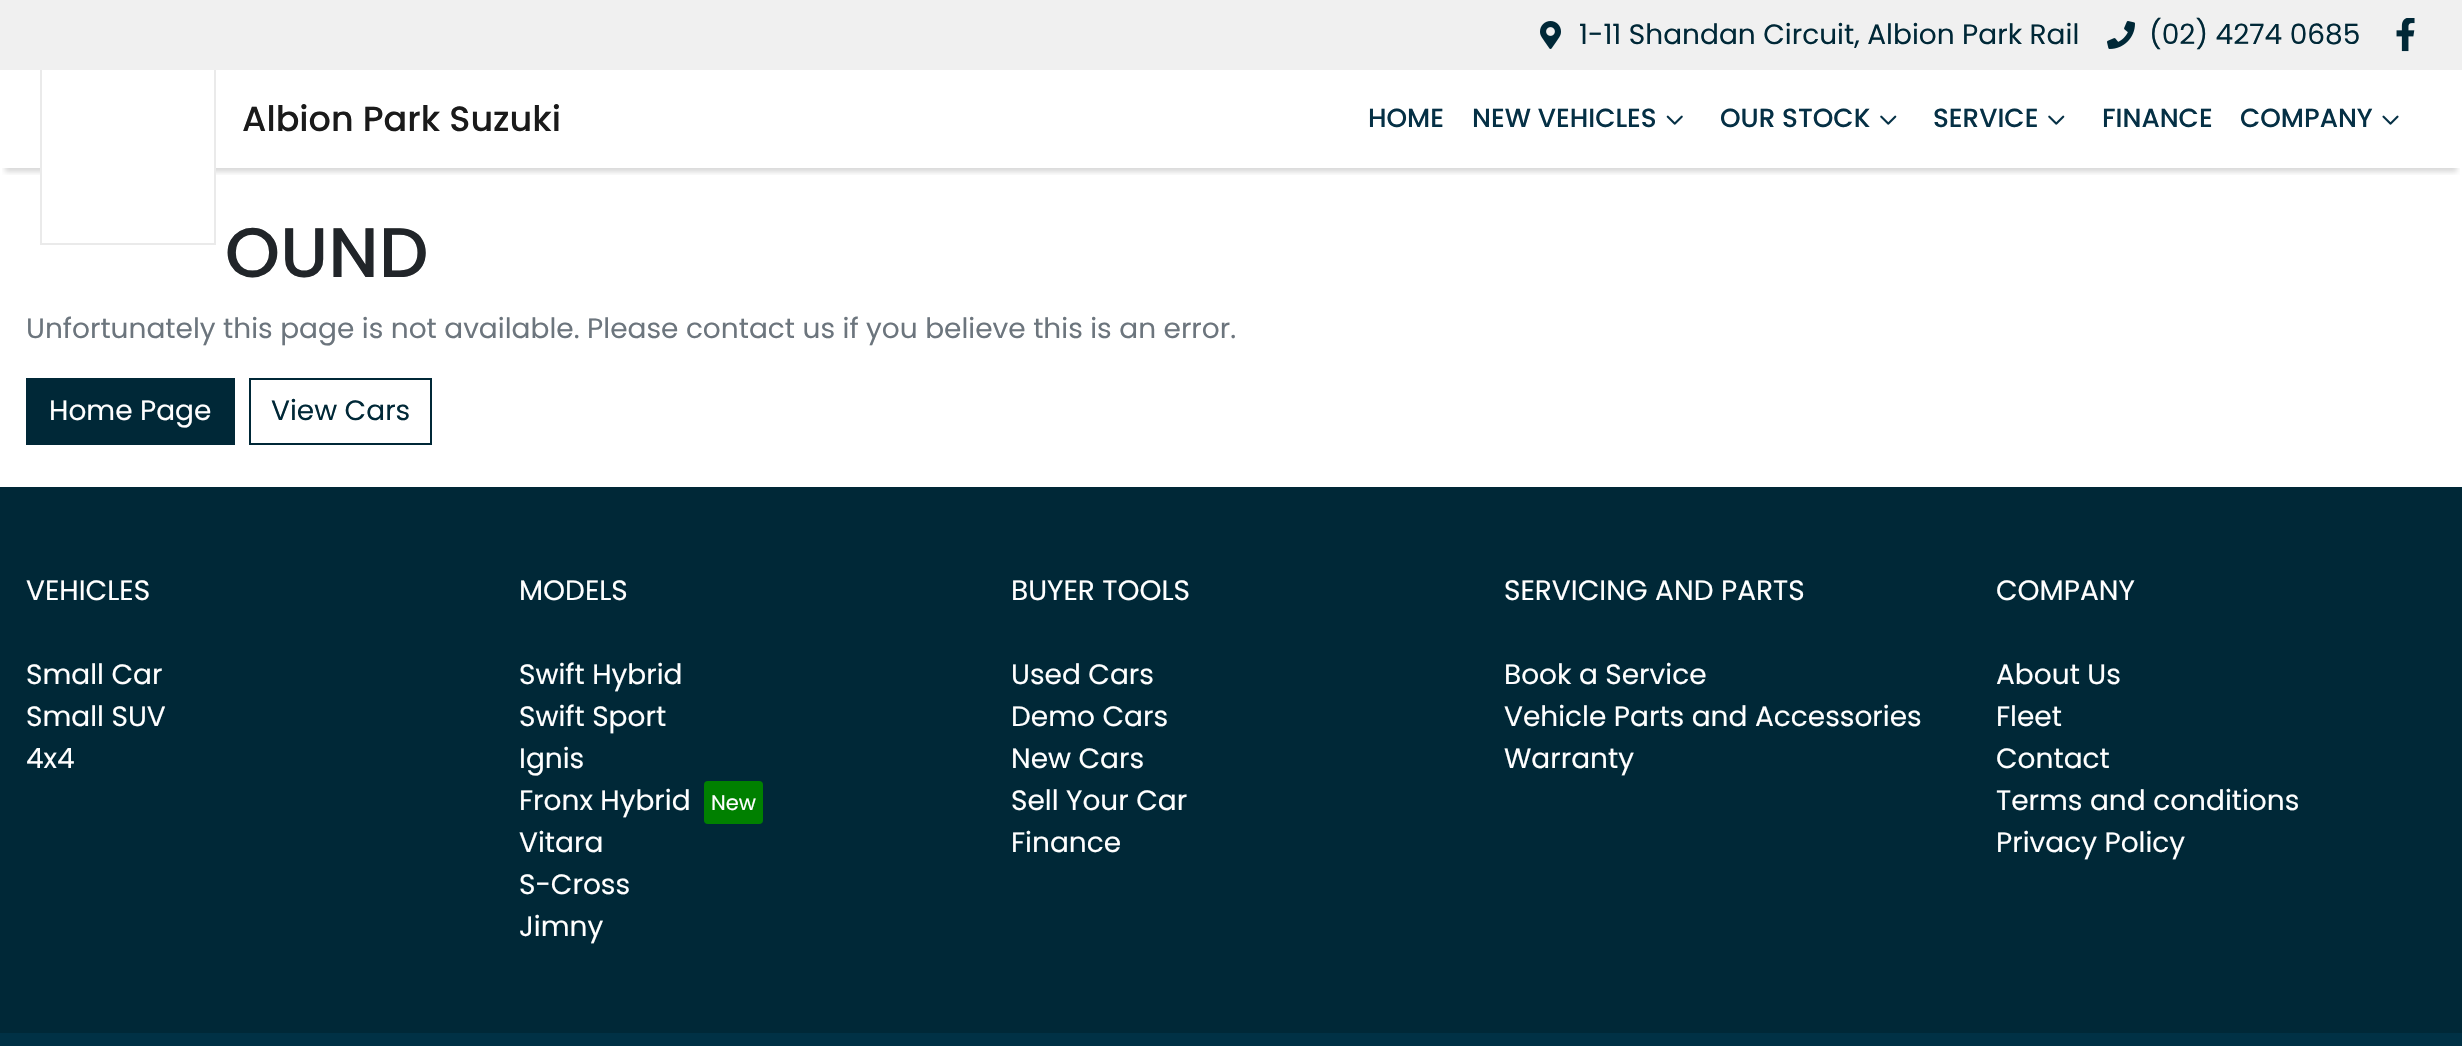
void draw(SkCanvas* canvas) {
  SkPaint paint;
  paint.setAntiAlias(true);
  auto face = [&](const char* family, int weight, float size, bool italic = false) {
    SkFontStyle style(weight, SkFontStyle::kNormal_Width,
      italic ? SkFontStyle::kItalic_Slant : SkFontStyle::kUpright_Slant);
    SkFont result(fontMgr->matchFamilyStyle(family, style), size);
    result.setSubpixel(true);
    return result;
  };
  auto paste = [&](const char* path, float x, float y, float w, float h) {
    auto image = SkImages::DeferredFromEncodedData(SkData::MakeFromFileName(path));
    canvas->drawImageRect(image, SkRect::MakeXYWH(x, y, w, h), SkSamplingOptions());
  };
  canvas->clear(0xffffffff);
  paint.setColor(0xfff0f0f0);
  canvas->drawRect(SkRect::MakeXYWH(0, 0, 2462, 70), paint);
  paste("img/1.png", 1540, 21, 21, 28);
  paste("img/2.png", 2107, 21, 28, 28);
  paste("img/3.png", 2396, 18, 19, 34);
  canvas->save();
  canvas->clipRect(SkRect::MakeXYWH(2, 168, 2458, 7));
  paint.setColor(0x26000000);
  paint.setMaskFilter(SkMaskFilter::MakeBlur(kNormal_SkBlurStyle, 2.5f));
  canvas->drawRect(SkRect::MakeXYWH(5, 84, 2452, 88), paint);
  paint.setMaskFilter(nullptr);
  canvas->restore();
  {
    const struct { float x, y, w, h; SkColor color; } items[] = {
      {42, 168, 172, 8, 0xffffffff},
      {214, 70, 2, 175, 0xffeaeaea},
      {40, 243, 175, 2, 0xffeaeaea},
      {40, 70, 2, 175, 0xffeaeaea},
    };
    for (auto [x, y, w, h, color] : items) {
      paint.setColor(color);
      canvas->drawRect(SkRect::MakeXYWH(x, y, w, h), paint);
    }
  }
  paste("img/4.png", 1666, 115, 17, 10);
  paste("img/5.png", 1880, 115, 17, 10);
  paste("img/5.png", 2048, 115, 17, 10);
  paste("img/6.png", 2382, 115, 17, 10);
  paint.setColor(0xff002837);
  canvas->drawRect(SkRect::MakeXYWH(26, 378, 209, 67), paint);
  paint.setStroke(true);
  paint.setStrokeWidth(2);
  canvas->drawRect(SkRect::MakeXYWH(250, 379, 181, 65), paint);
  paint.setStroke(false);
  canvas->drawRect(SkRect::MakeXYWH(0, 487, 2462, 546), paint);
  paint.setColor(0xff008000);
  canvas->drawRoundRect(SkRect::MakeXYWH(704, 781, 59, 43), 4, 4, paint);
  paint.setColor(0xff003145);
  canvas->drawRect(SkRect::MakeXYWH(0, 1033, 2462, 13), paint);
  auto f0 = face("Poppins", 400, 28);
  paint.setColor(0xff002837);
  canvas->drawString("1-11 Shandan Circuit, Albion Park Rail", 1579, 44, f0, paint);
  canvas->drawString("(02) 4274 0685", 2149, 44, f0, paint);
  auto f1 = face("Poppins", 500, 35);
  paint.setColor(0xff1a1a1a);
  canvas->drawString("Albion Park Suzuki", 242, 131, f1, paint);
  auto f2 = face("Poppins", 500, 26.25f);
  paint.setColor(0xff053045);
  {
    const struct { const char* s; float x, y; } items[] = {
      {"HOME", 1368, 127},
      {"NEW VEHICLES", 1472, 127},
      {"OUR STOCK", 1720, 127},
      {"SERVICE", 1933, 127},
      {"FINANCE", 2102, 127},
      {"COMPANY", 2240, 127},
    };
    for (auto [s, x, y] : items) {
      canvas->drawString(s, x, y, f2, paint);
    }
  }
  auto f3 = face("Poppins", 500, 70);
  paint.setColor(0xff212529);
  canvas->drawString("OUND", 225, 277, f3, paint);
  paint.setColor(0xff6c757d);
  canvas->drawString("Unfortunately this page is not available. Please contact us if you believe this is an error.", 26, 338, f0, paint);
  paint.setColor(0xffffffff);
  canvas->drawString("Home Page", 49, 420, f0, paint);
  paint.setColor(0xff002837);
  canvas->drawString("View Cars", 271, 420, f0, paint);
  paint.setColor(0xffffffff);
  {
    const struct { const char* s; float x, y; } items[] = {
      {"VEHICLES", 26, 600},
      {"Small Car", 26, 684},
      {"Small SUV", 26, 726},
      {"4x4", 26, 768},
      {"MODELS", 519, 600},
      {"Swift Hybrid", 519, 684},
      {"Swift Sport", 519, 726},
      {"Ignis", 519, 768},
      {"Fronx Hybrid", 519, 810},
    };
    for (auto [s, x, y] : items) {
      canvas->drawString(s, x, y, f0, paint);
    }
  }
  auto f4 = face("Poppins", 400, 21);
  canvas->drawString("New", 711, 810, f4, paint);
  {
    const struct { const char* s; float x, y; } items[] = {
      {"Vitara", 519, 852},
      {"S-Cross", 519, 894},
      {"Jimny", 519, 936},
      {"BUYER TOOLS", 1011, 600},
      {"Used Cars", 1011, 684},
      {"Demo Cars", 1011, 726},
      {"New Cars", 1011, 768},
      {"Sell Your Car", 1011, 810},
      {"Finance", 1011, 852},
      {"SERVICING AND PARTS", 1504, 600},
      {"Book a Service", 1504, 684},
      {"Vehicle Parts and Accessories", 1504, 726},
      {"Warranty", 1504, 768},
      {"COMPANY", 1996, 600},
      {"About Us", 1996, 684},
      {"Fleet", 1996, 726},
      {"Contact", 1996, 768},
      {"Terms and conditions", 1996, 810},
      {"Privacy Policy", 1996, 852},
    };
    for (auto [s, x, y] : items) {
      canvas->drawString(s, x, y, f0, paint);
    }
  }
}
